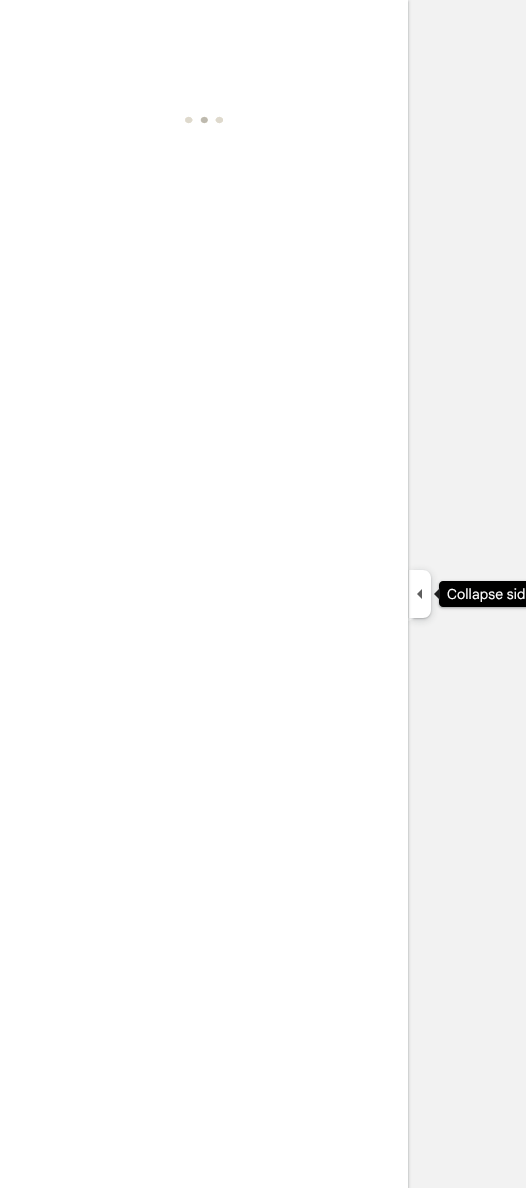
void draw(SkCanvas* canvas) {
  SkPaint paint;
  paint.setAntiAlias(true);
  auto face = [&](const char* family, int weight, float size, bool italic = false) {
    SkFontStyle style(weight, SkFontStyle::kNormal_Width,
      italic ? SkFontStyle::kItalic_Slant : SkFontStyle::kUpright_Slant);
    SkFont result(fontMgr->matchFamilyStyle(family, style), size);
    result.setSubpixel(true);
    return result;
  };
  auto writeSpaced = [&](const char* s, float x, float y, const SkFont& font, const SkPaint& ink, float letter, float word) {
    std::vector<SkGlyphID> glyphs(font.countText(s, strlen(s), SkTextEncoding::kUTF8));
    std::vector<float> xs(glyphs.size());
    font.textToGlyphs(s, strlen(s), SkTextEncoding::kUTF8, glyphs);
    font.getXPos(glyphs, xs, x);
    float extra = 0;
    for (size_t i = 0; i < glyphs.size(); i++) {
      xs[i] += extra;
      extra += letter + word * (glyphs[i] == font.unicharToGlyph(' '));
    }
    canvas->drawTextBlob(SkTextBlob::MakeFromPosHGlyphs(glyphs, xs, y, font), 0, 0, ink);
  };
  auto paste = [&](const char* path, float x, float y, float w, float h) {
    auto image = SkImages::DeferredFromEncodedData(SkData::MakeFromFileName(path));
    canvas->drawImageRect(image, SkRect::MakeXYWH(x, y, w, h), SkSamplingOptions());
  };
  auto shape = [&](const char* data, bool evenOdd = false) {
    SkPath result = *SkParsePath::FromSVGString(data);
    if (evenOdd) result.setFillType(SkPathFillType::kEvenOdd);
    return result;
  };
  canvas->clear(0xfff2f2f2);
  paste("img/2.png", 408, 618, 7, 4);
  paint.setColor(0x263c4043);
  paint.setMaskFilter(SkMaskFilter::MakeBlur(kNormal_SkBlurStyle, 3));
  canvas->drawRoundRect(SkRect::MakeXYWH(406, 570, 27, 52), 10, 10, paint);
  paint.setMaskFilter(nullptr);
  paint.setColor(0x4d3c4043);
  paint.setMaskFilter(SkMaskFilter::MakeBlur(kNormal_SkBlurStyle, 1));
  canvas->drawRoundRect(SkRect::MakeXYWH(408, 571, 23, 48), 8, 8, paint);
  paint.setMaskFilter(nullptr);
  paint.setColor(0xffffffff);
  canvas->drawPath(shape("M408 570H423C427.5 570 431 573.5 431 578V610C431 614.5 427.5 618 423 618H408Z"), paint);
  paint.setColor(0xffe3e3e3);
  canvas->drawRect(SkRect::MakeXYWH(408, 570, 1, 48), paint);
  paint.setColor(0x263c4043);
  paint.setMaskFilter(SkMaskFilter::MakeBlur(kNormal_SkBlurStyle, 1.5f));
  canvas->drawRect(SkRect::MakeXYWH(-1, 0, 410, 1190), paint);
  paint.setMaskFilter(nullptr);
  paint.setColor(0x4d3c4043);
  paint.setMaskFilter(SkMaskFilter::MakeBlur(kNormal_SkBlurStyle, 1));
  canvas->drawRect(SkRect::MakeXYWH(0, 1, 408, 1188), paint);
  paint.setMaskFilter(nullptr);
  paint.setColor(0xffffffff);
  canvas->drawRect(SkRect::MakeXYWH(0, 0, 408, 1188), paint);
  paste("img/1.png", 185, 116, 38, 8);
  paint.setColor(0xff5e5e5e);
  canvas->drawPath(shape("M422 599L417 594L422 589Z"), paint);
  paint.setColor(0x263c4043);
  paint.setMaskFilter(SkMaskFilter::MakeBlur(kNormal_SkBlurStyle, 1.5f));
  canvas->drawRoundRect(SkRect::MakeXYWH(438, 581, 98, 28), 5, 5, paint);
  paint.setMaskFilter(nullptr);
  paint.setColor(0x4d3c4043);
  paint.setMaskFilter(SkMaskFilter::MakeBlur(kNormal_SkBlurStyle, 1));
  canvas->drawRoundRect(SkRect::MakeXYWH(439, 582, 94, 26), 4, 4, paint);
  paint.setMaskFilter(nullptr);
  paint.setColor(0xff000000);
  canvas->drawPath(shape("M443 581H526V607H443C441 607 439 605 439 603V585C439 583 441 581 443 581Z"), paint);
  paint.setColor(0xff1f1f1f);
  canvas->drawPath(shape("M440 588V600L434 594Z"), paint);
  auto f0 = face("Google Sans", 400, 14);
  paint.setColor(0xffffffff);
  writeSpaced("Collapse sid", 447, 599, f0, paint, 0.1f, 0);
}
